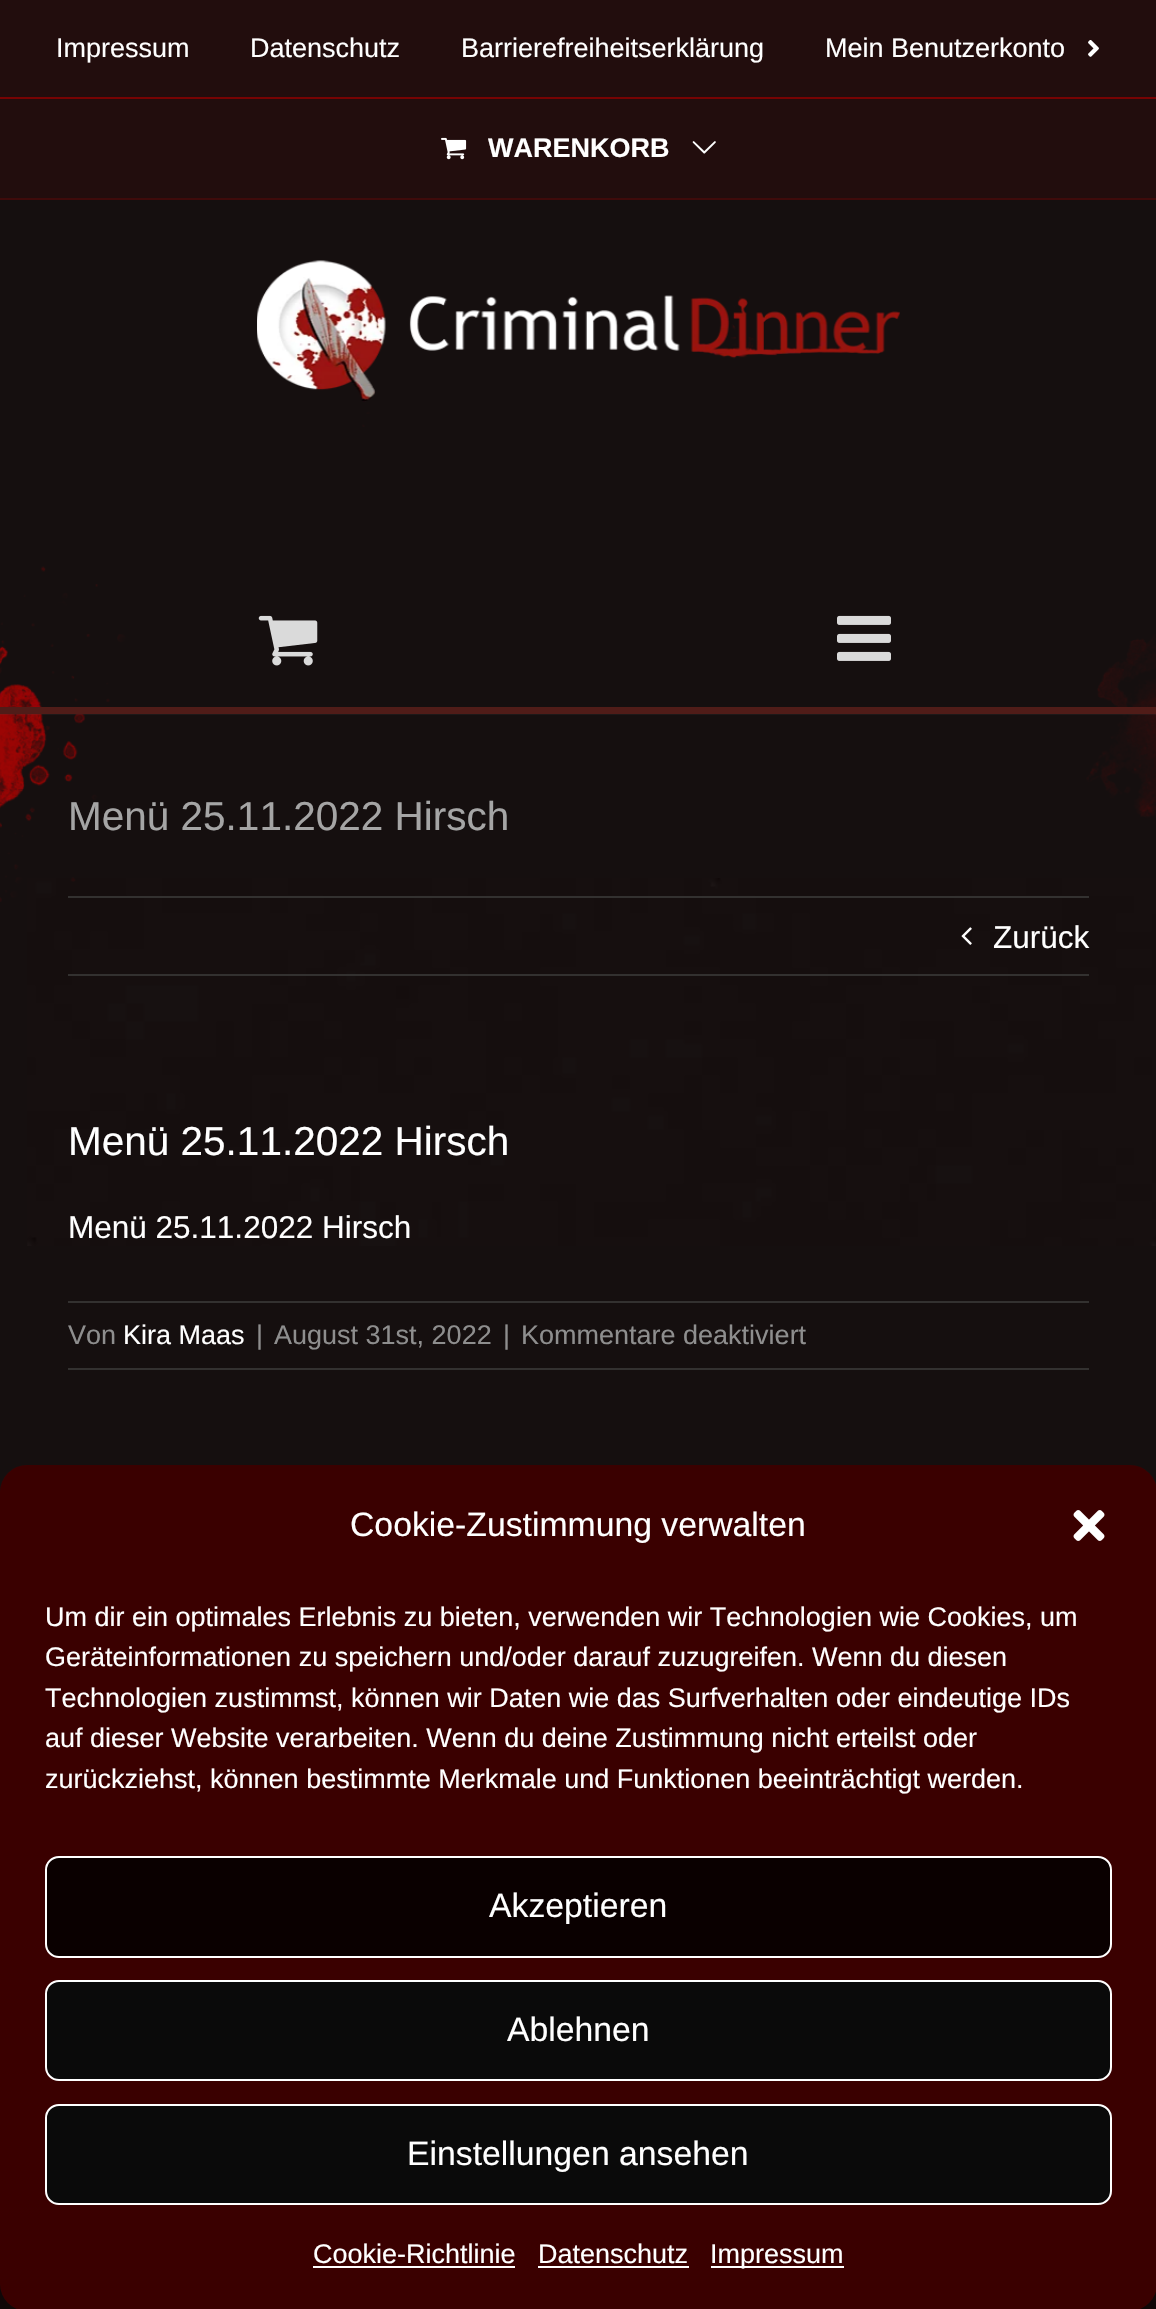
void draw(SkCanvas* canvas) {
  SkPaint paint;
  paint.setAntiAlias(true);
  auto face = [&](const char* family, int weight, float size, bool italic = false) {
    SkFontStyle style(weight, SkFontStyle::kNormal_Width,
      italic ? SkFontStyle::kItalic_Slant : SkFontStyle::kUpright_Slant);
    SkFont result(fontMgr->matchFamilyStyle(family, style), size);
    result.setSubpixel(true);
    return result;
  };
  auto paste = [&](const char* path, float x, float y, float w, float h) {
    auto image = SkImages::DeferredFromEncodedData(SkData::MakeFromFileName(path));
    canvas->drawImageRect(image, SkRect::MakeXYWH(x, y, w, h), SkSamplingOptions());
  };
  canvas->clear(0xff150f0f);
  paste("img/1.png", 27, 878, 1129, 368);
  paste("img/2.png", 0, 566, 1156, 336);
  paint.setColor(0xff220d0d);
  canvas->drawRect(SkRect::MakeXYWH(0, 0, 1156, 198), paint);
  paint.setColor(0xff3f0b0b);
  canvas->drawRect(SkRect::MakeXYWH(0, 198, 1156, 2), paint);
  paste("img/3.png", 1088, 40, 11, 17);
  paint.setColor(0xff770303);
  canvas->drawRect(SkRect::MakeXYWH(0, 97, 1156, 2), paint);
  paste("img/4.png", 441, 137, 26, 23);
  paste("img/5.png", 692, 141, 24, 13);
  paint.setColor(0xff501c18);
  canvas->drawRect(SkRect::MakeXYWH(0, 707, 1156, 7), paint);
  paste("img/6.png", 257, 260, 643, 167);
  paste("img/7.png", 258, 615, 60, 51);
  paste("img/8.png", 837, 615, 54, 46);
  {
    const struct { float x, y, w, h; SkColor color; } items[] = {
      {0, 714, 1156, 1, 0x29464646},
      {68, 896, 1021, 2, 0xff333130},
      {68, 974, 1021, 2, 0xff333130},
    };
    for (auto [x, y, w, h, color] : items) {
      paint.setColor(color);
      canvas->drawRect(SkRect::MakeXYWH(x, y, w, h), paint);
    }
  }
  paste("img/9.png", 961, 927, 11, 18);
  canvas->drawRect(SkRect::MakeXYWH(68, 1301, 1021, 2), paint);
  canvas->drawRect(SkRect::MakeXYWH(68, 1368, 1021, 2), paint);
  paste("img/10.png", 0, 2284, 1156, 25);
  paint.setColor(0xff3a0000);
  canvas->drawRoundRect(SkRect::MakeXYWH(0, 1465, 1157, 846), 27, 27, paint);
  paste("img/11.png", 1073, 1510, 32, 31);
  paint.setColor(0xff0a0000);
  canvas->drawRoundRect(SkRect::MakeXYWH(46, 1857, 1065, 100), 13, 13, paint);
  paint.setStroke(true);
  paint.setStrokeWidth(2);
  paint.setColor(0xffffffff);
  canvas->drawRoundRect(SkRect::MakeXYWH(46, 1857, 1065, 100), 13, 13, paint);
  paint.setStroke(false);
  paint.setColor(0xff0a0a0a);
  canvas->drawRoundRect(SkRect::MakeXYWH(46, 1981, 1065, 99), 13, 13, paint);
  paint.setStroke(true);
  paint.setColor(0xffffffff);
  canvas->drawRoundRect(SkRect::MakeXYWH(46, 1981, 1065, 99), 13, 13, paint);
  paint.setStroke(false);
  paint.setColor(0xff0a0a0a);
  canvas->drawRoundRect(SkRect::MakeXYWH(46, 2105, 1065, 99), 13, 13, paint);
  paint.setStroke(true);
  paint.setColor(0xffffffff);
  canvas->drawRoundRect(SkRect::MakeXYWH(46, 2105, 1065, 99), 13, 13, paint);
  paint.setStroke(false);
  {
    const struct { float x, y, w, h; SkColor color; } items[] = {
      {313, 2266, 202, 2, 0xffffffff},
      {538, 2266, 151, 2, 0xffffffff},
      {711, 2266, 133, 2, 0xffffffff},
    };
    for (auto [x, y, w, h, color] : items) {
      paint.setColor(color);
      canvas->drawRect(SkRect::MakeXYWH(x, y, w, h), paint);
    }
  }
  auto f0 = face("Liberation Sans", 400, 27);
  {
    const struct { const char* s; float x, y; } items[] = {
      {"Impressum", 56, 57},
      {"Datenschutz", 250, 57},
      {"Barrierefreiheitserklärung", 461, 57},
      {"Mein Benutzerkonto", 825, 57},
    };
    for (auto [s, x, y] : items) {
      canvas->drawString(s, x, y, f0, paint);
    }
  }
  auto f1 = face("Liberation Sans", 700, 27);
  canvas->drawString("WARENKORB", 488, 157, f1, paint);
  auto f2 = face("Liberation Sans", 400, 40.5f);
  paint.setColor(0xffa5a5a5);
  canvas->drawString("Menü 25.11.2022 Hirsch", 68, 830, f2, paint);
  auto f3 = face("Liberation Sans", 400, 31.5f);
  paint.setColor(0xffffffff);
  canvas->drawString("Zurück", 993, 948, f3, paint);
  canvas->drawString("Menü 25.11.2022 Hirsch", 68, 1155, f2, paint);
  canvas->drawString("Menü 25.11.2022 Hirsch", 68, 1238, f3, paint);
  paint.setColor(0xff8e8e8e);
  canvas->drawString("Von", 68, 1344, f0, paint);
  paint.setColor(0xffffffff);
  canvas->drawString("Kira Maas", 123, 1344, f0, paint);
  paint.setColor(0xff8e8e8e);
  {
    const struct { const char* s; float x, y; } items[] = {
      {"|", 256, 1344},
      {"August 31st, 2022", 274, 1344},
      {"|", 503, 1344},
      {"Kommentare deaktiviert", 521, 1344},
    };
    for (auto [s, x, y] : items) {
      canvas->drawString(s, x, y, f0, paint);
    }
  }
  auto f4 = face("Liberation Sans", 400, 33.75f);
  paint.setColor(0xffffffff);
  canvas->drawString("Cookie-Zustimmung verwalten", 350, 1536, f4, paint);
  {
    const struct { const char* s; float x, y; } items[] = {
      {"Um dir ein optimales Erlebnis zu bieten, verwenden wir Technologien wie Cookies, um", 45, 1626},
      {"Geräteinformationen zu speichern und/oder darauf zuzugreifen. Wenn du diesen", 45, 1666},
      {"Technologien zustimmst, können wir Daten wie das Surfverhalten oder eindeutige IDs", 45, 1707},
      {"auf dieser Website verarbeiten. Wenn du deine Zustimmung nicht erteilst oder", 45, 1747},
      {"zurückziehst, können bestimmte Merkmale und Funktionen beeinträchtigt werden.", 45, 1788},
    };
    for (auto [s, x, y] : items) {
      canvas->drawString(s, x, y, f0, paint);
    }
  }
  {
    const struct { const char* s; float x, y; } items[] = {
      {"Akzeptieren", 489, 1917},
      {"Ablehnen", 507, 2041},
      {"Einstellungen ansehen", 407, 2165},
    };
    for (auto [s, x, y] : items) {
      canvas->drawString(s, x, y, f4, paint);
    }
  }
  {
    const struct { const char* s; float x, y; } items[] = {
      {"Cookie-Richtlinie", 313, 2263},
      {"Datenschutz", 538, 2263},
      {"Impressum", 710, 2263},
    };
    for (auto [s, x, y] : items) {
      canvas->drawString(s, x, y, f0, paint);
    }
  }
}
